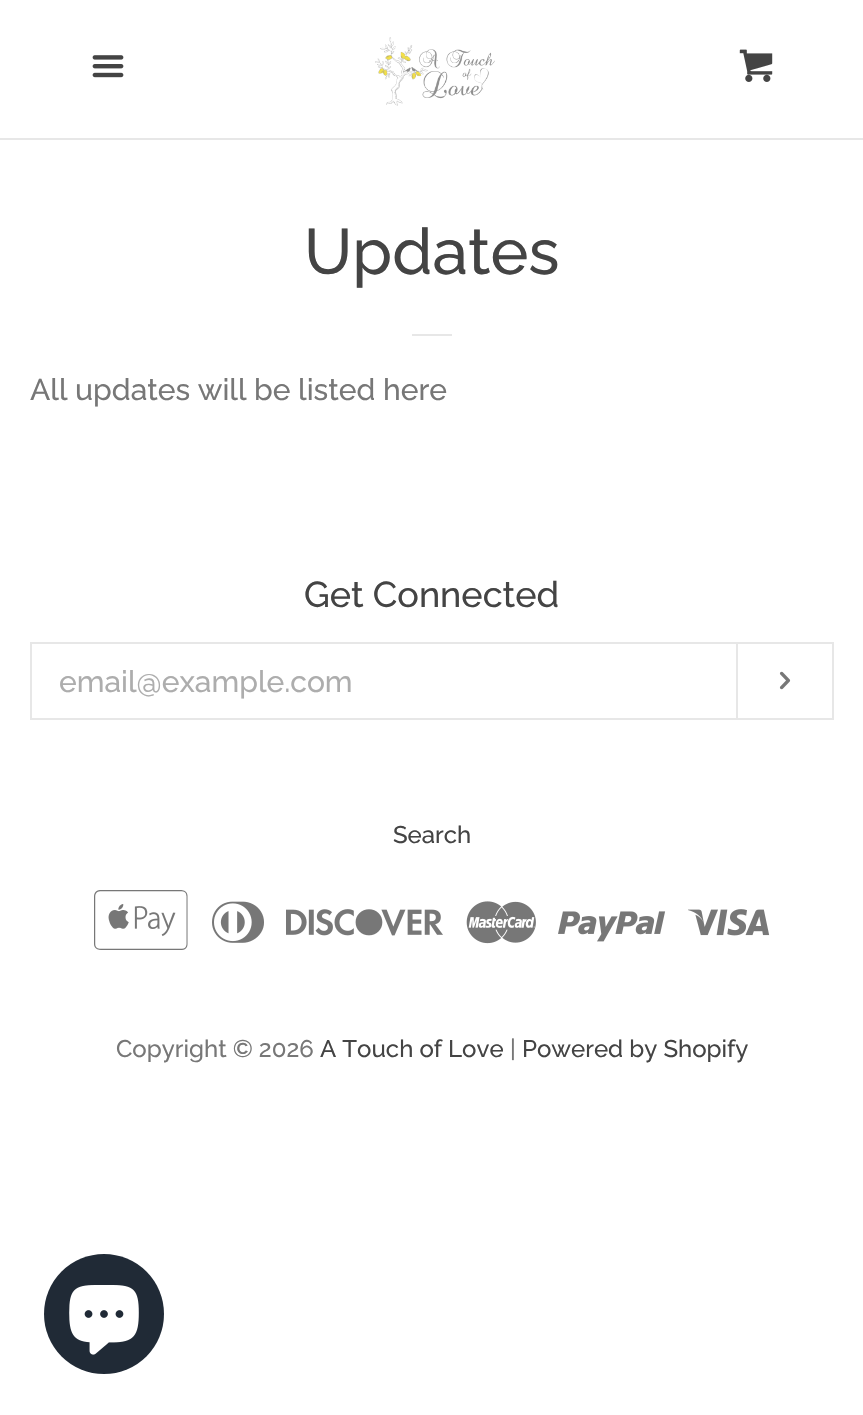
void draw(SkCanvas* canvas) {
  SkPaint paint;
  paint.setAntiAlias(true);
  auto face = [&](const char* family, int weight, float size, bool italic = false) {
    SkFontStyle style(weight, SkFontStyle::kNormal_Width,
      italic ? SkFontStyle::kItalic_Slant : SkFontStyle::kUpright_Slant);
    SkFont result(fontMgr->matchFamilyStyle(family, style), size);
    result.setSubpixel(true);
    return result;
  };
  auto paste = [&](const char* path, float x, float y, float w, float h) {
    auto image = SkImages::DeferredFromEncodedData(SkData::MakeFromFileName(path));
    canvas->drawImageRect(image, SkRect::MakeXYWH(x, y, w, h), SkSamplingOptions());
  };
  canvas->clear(0xffffffff);
  paint.setColor(0xffe7e7e7);
  canvas->drawRect(SkRect::MakeXYWH(0, 138, 863, 2), paint);
  paste("img/1.png", 92, 55, 32, 23);
  paste("img/2.png", 375, 37, 120, 69);
  paste("img/3.png", 739, 49, 34, 33);
  canvas->drawRect(SkRect::MakeXYWH(412, 334, 40, 2), paint);
  paint.setStroke(true);
  paint.setStrokeWidth(2);
  canvas->drawRect(SkRect::MakeXYWH(31, 643, 802, 76), paint);
  paint.setStroke(false);
  canvas->drawRect(SkRect::MakeXYWH(736, 644, 2, 74), paint);
  paste("img/4.png", 779, 671, 12, 19);
  paste("img/5.png", 94, 890, 94, 60);
  paste("img/6.png", 212, 901, 52, 42);
  paste("img/7.png", 286, 909, 157, 27);
  paste("img/8.png", 466, 901, 70, 43);
  paste("img/9.png", 558, 911, 108, 31);
  paste("img/10.png", 688, 909, 82, 27);
  paint.setColor(0xff202a36);
  canvas->drawCircle(104, 1314, 60, paint);
  paste("img/11.png", 69, 1285, 70, 70);
  auto f0 = face("Raleway", 500, 64);
  paint.setColor(0xff444444);
  canvas->drawString("Updates", 304, 274, f0, paint);
  auto f1 = face("Raleway", 500, 30);
  paint.setColor(0xff777777);
  canvas->drawString("All updates will be listed here", 30, 400, f1, paint);
  auto f2 = face("Raleway", 500, 36);
  paint.setColor(0xff444444);
  canvas->drawString("Get Connected", 304, 607, f2, paint);
  paint.setColor(0xffadadad);
  canvas->drawString("email@example.com", 59, 692, f1, paint);
  auto f3 = face("Raleway", 500, 24);
  paint.setColor(0xff444444);
  canvas->drawString("Search", 393, 843, f3, paint);
  paint.setColor(0xff777777);
  canvas->drawString("Copyright © 2026", 116, 1057, f3, paint);
  paint.setColor(0xff444444);
  canvas->drawString("A Touch of Love", 320, 1057, f3, paint);
  paint.setColor(0xff777777);
  canvas->drawString("|", 510, 1057, f3, paint);
  paint.setColor(0xff444444);
  canvas->drawString("Powered by Shopify", 522, 1057, f3, paint);
}
